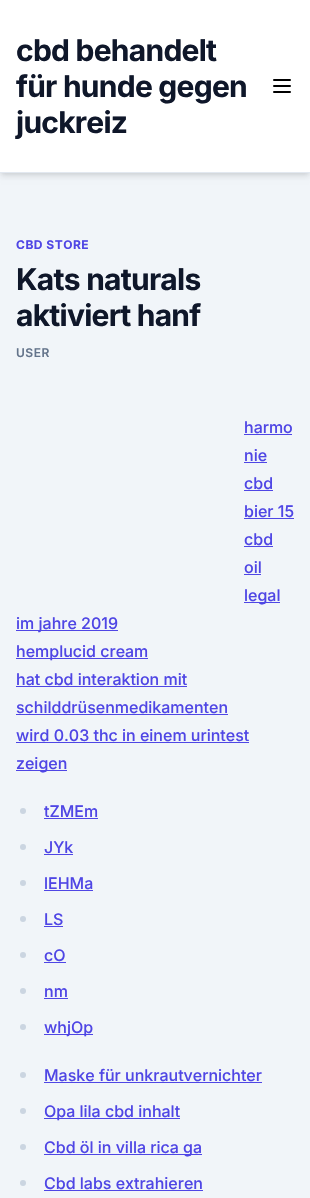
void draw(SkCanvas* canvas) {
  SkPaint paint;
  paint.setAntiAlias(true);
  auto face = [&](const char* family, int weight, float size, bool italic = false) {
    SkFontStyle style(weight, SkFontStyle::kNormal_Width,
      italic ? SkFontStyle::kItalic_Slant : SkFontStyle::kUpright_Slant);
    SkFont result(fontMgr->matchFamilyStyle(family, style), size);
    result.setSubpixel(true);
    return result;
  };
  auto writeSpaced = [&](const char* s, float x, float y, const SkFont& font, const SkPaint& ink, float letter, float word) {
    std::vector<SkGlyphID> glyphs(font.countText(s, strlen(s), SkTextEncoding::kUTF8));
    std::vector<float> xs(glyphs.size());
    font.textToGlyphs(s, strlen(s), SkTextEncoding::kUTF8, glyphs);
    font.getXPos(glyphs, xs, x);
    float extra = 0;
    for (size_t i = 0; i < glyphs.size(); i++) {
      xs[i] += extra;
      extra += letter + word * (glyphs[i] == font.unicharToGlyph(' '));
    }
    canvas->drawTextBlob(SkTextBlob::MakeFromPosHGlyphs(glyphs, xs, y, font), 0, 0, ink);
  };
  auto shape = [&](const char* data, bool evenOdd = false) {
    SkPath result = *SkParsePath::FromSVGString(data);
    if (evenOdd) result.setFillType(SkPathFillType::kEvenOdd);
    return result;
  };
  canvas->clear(0xfff1f5f9);
  paint.setColor(0x0f000000);
  paint.setMaskFilter(SkMaskFilter::MakeBlur(kNormal_SkBlurStyle, 2));
  canvas->drawRect(SkRect::MakeXYWH(1, 3, 308, 171), paint);
  paint.setMaskFilter(nullptr);
  paint.setColor(0x1a000000);
  paint.setMaskFilter(SkMaskFilter::MakeBlur(kNormal_SkBlurStyle, 3));
  canvas->drawRect(SkRect::MakeXYWH(1, 5, 308, 171), paint);
  paint.setMaskFilter(nullptr);
  paint.setColor(0xffffffff);
  canvas->drawRect(SkRect::MakeXYWH(0, 0, 310, 172), paint);
  paint.setStroke(true);
  paint.setStrokeWidth(2);
  paint.setStrokeCap(SkPaint::kRound_Cap);
  paint.setStrokeJoin(SkPaint::kRound_Join);
  paint.setColor(0xff000000);
  canvas->drawPath(shape("M274 80H290M274 86H290M274 92H290"), paint);
  paint.setStroke(false);
  {
    const struct { float x, y, w, h; SkColor color; } items[] = {
      {0, 172, 310, 1, 0xffe2e8f0},
      {244, 434, 48, 1, 0xff4f46e5},
      {244, 462, 23, 1, 0xff4f46e5},
      {244, 490, 29, 1, 0xff4f46e5},
      {244, 518, 50, 1, 0xff4f46e5},
      {244, 546, 29, 1, 0xff4f46e5},
      {244, 574, 17, 1, 0xff4f46e5},
      {244, 602, 36, 1, 0xff4f46e5},
      {16, 630, 102, 1, 0xff4f46e5},
      {16, 658, 132, 1, 0xff4f46e5},
      {16, 686, 171, 1, 0xff4f46e5},
      {16, 714, 212, 1, 0xff4f46e5},
      {16, 742, 233, 1, 0xff4f46e5},
      {16, 770, 51, 1, 0xff4f46e5},
    };
    for (auto [x, y, w, h, color] : items) {
      paint.setColor(color);
      canvas->drawRect(SkRect::MakeXYWH(x, y, w, h), paint);
    }
  }
  paint.setColor(0xffcbd5e1);
  canvas->drawCircle(23, 811, 3, paint);
  paint.setColor(0xff4f46e5);
  canvas->drawRect(SkRect::MakeXYWH(44, 818, 54, 1), paint);
  paint.setColor(0xffcbd5e1);
  canvas->drawCircle(23, 847, 3, paint);
  paint.setColor(0xff4f46e5);
  canvas->drawRect(SkRect::MakeXYWH(44, 854, 29, 1), paint);
  paint.setColor(0xffcbd5e1);
  canvas->drawCircle(23, 883, 3, paint);
  paint.setColor(0xff4f46e5);
  canvas->drawRect(SkRect::MakeXYWH(44, 890, 49, 1), paint);
  paint.setColor(0xffcbd5e1);
  canvas->drawCircle(23, 919, 3, paint);
  paint.setColor(0xff4f46e5);
  canvas->drawRect(SkRect::MakeXYWH(44, 926, 19, 1), paint);
  paint.setColor(0xffcbd5e1);
  canvas->drawCircle(23, 955, 3, paint);
  paint.setColor(0xff4f46e5);
  canvas->drawRect(SkRect::MakeXYWH(44, 962, 22, 1), paint);
  paint.setColor(0xffcbd5e1);
  canvas->drawCircle(23, 991, 3, paint);
  paint.setColor(0xff4f46e5);
  canvas->drawRect(SkRect::MakeXYWH(44, 998, 24, 1), paint);
  paint.setColor(0xffcbd5e1);
  canvas->drawCircle(23, 1027, 3, paint);
  paint.setColor(0xff4f46e5);
  canvas->drawRect(SkRect::MakeXYWH(44, 1034, 49, 1), paint);
  paint.setColor(0xffcbd5e1);
  canvas->drawCircle(23, 1075, 3, paint);
  paint.setColor(0xff4f46e5);
  canvas->drawRect(SkRect::MakeXYWH(44, 1082, 218, 1), paint);
  paint.setColor(0xffcbd5e1);
  canvas->drawCircle(23, 1111, 3, paint);
  paint.setColor(0xff4f46e5);
  canvas->drawRect(SkRect::MakeXYWH(44, 1118, 136, 1), paint);
  paint.setColor(0xffcbd5e1);
  canvas->drawCircle(23, 1147, 3, paint);
  paint.setColor(0xff4f46e5);
  canvas->drawRect(SkRect::MakeXYWH(44, 1154, 158, 1), paint);
  paint.setColor(0xffcbd5e1);
  canvas->drawCircle(23, 1183, 3, paint);
  paint.setColor(0xff4f46e5);
  canvas->drawRect(SkRect::MakeXYWH(44, 1190, 159, 1), paint);
  auto f0 = face("Inter", 700, 30);
  paint.setColor(0xff0f172a);
  {
    const struct { const char* s; float x, y; } items[] = {
      {"cbd behandelt", 16, 61},
      {"für hunde gegen", 16, 97},
      {"juckreiz", 16, 133},
    };
    for (auto [s, x, y] : items) {
      writeSpaced(s, x, y, f0, paint, -0.75f, 0);
    }
  }
  auto f1 = face("Inter", 700, 12);
  paint.setColor(0xff4f46e5);
  writeSpaced("CBD STORE", 16, 249, f1, paint, 0.5f, 0);
  paint.setColor(0xff0f172a);
  writeSpaced("Kats naturals", 16, 290, f0, paint, -0.75f, 0);
  writeSpaced("aktiviert hanf", 16, 326, f0, paint, -0.75f, 0);
  auto f2 = face("Inter", 600, 12);
  paint.setColor(0xff64748b);
  writeSpaced("USER", 16, 357, f2, paint, 0.5f, 0);
  auto f3 = face("Inter", 500, 16);
  paint.setColor(0xff4f46e5);
  {
    const struct { const char* s; float x, y; } items[] = {
      {"harmo", 244, 433},
      {"nie", 244, 461},
      {"cbd", 244, 489},
      {"bier 15", 244, 517},
      {"cbd", 244, 545},
      {"oil", 244, 573},
      {"legal", 244, 601},
      {"im jahre 2019", 16, 629},
      {"hemplucid cream", 16, 657},
      {"hat cbd interaktion mit", 16, 685},
      {"schilddrüsenmedikamenten", 16, 713},
      {"wird 0.03 thc in einem urintest", 16, 741},
      {"zeigen", 16, 769},
      {"tZMEm", 44, 817},
      {"JYk", 44, 853},
      {"lEHMa", 44, 889},
      {"LS", 44, 925},
      {"cO", 44, 961},
      {"nm", 44, 997},
      {"whjOp", 44, 1033},
      {"Maske für unkrautvernichter", 44, 1081},
      {"Opa lila cbd inhalt", 44, 1117},
      {"Cbd öl in villa rica ga", 44, 1153},
      {"Cbd labs extrahieren", 44, 1189},
    };
    for (auto [s, x, y] : items) {
      canvas->drawString(s, x, y, f3, paint);
    }
  }
}
